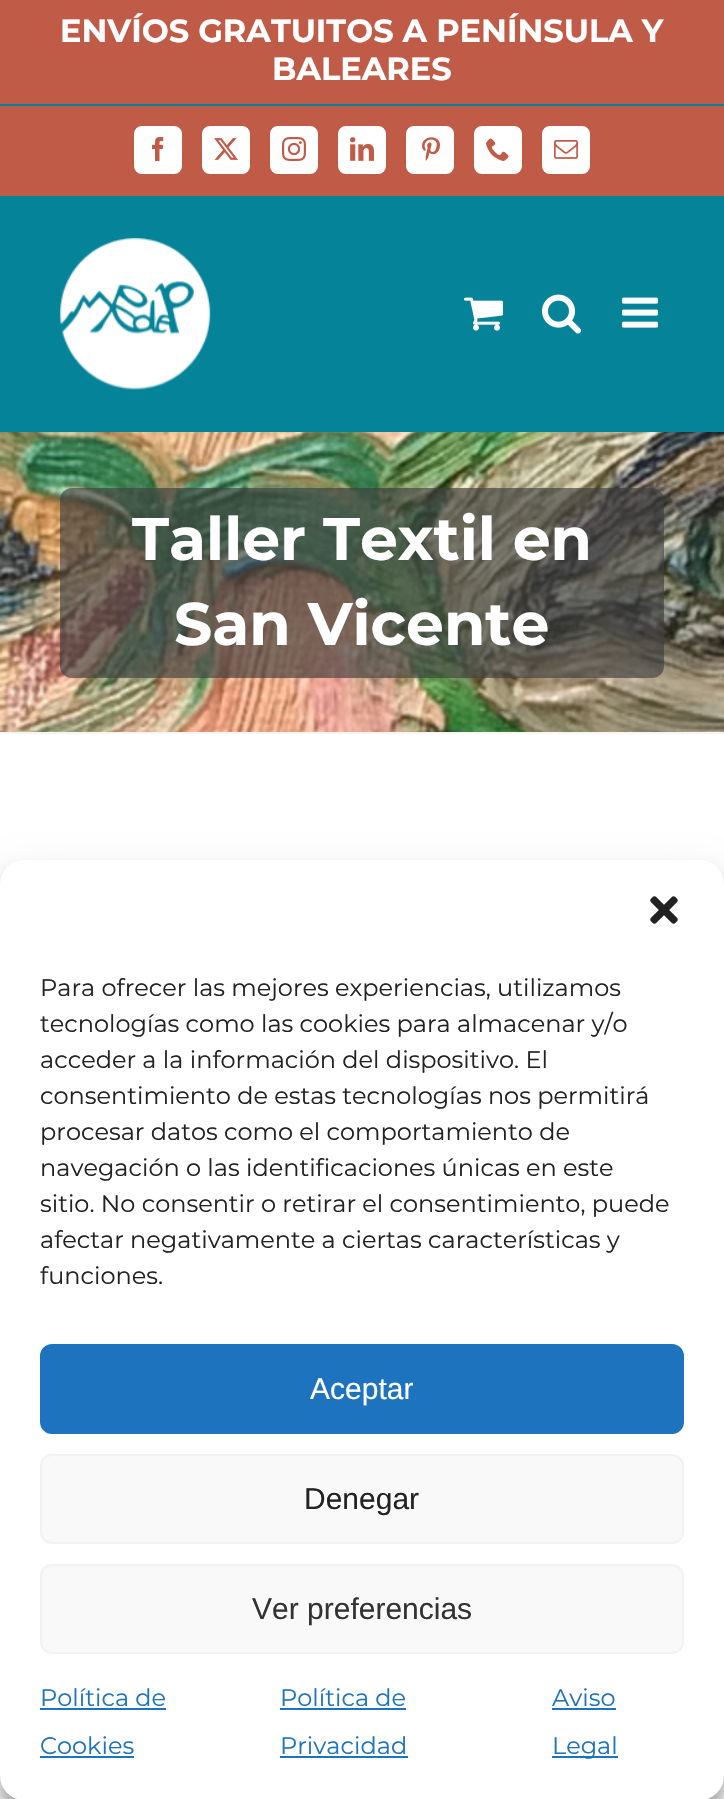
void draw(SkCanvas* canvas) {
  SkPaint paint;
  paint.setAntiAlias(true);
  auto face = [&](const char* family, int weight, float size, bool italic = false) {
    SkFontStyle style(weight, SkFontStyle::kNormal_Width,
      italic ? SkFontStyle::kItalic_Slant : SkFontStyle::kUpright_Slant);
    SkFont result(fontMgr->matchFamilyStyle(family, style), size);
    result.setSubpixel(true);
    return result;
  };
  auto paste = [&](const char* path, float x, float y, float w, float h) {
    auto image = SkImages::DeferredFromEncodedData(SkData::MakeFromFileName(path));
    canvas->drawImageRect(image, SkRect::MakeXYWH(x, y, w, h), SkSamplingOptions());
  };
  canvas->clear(0xffffffff);
  {
    const struct { float x, y, w, h; SkColor color; } items[] = {
      {0, 0, 724, 196, 0xffc05b48},
      {0, 196, 724, 236, 0xff058399},
      {0, 104, 724, 2, 0xff058399},
    };
    for (auto [x, y, w, h, color] : items) {
      paint.setColor(color);
      canvas->drawRect(SkRect::MakeXYWH(x, y, w, h), paint);
    }
  }
  paint.setColor(0xffffffff);
  canvas->drawRoundRect(SkRect::MakeXYWH(135, 127, 46, 46), 7, 7, paint);
  paint.setStroke(true);
  paint.setStrokeWidth(2);
  canvas->drawRoundRect(SkRect::MakeXYWH(135, 127, 46, 46), 7, 7, paint);
  paste("img/1.png", 152, 137, 12, 24);
  paint.setStroke(false);
  canvas->drawRoundRect(SkRect::MakeXYWH(203, 127, 46, 46), 7, 7, paint);
  paint.setStroke(true);
  canvas->drawRoundRect(SkRect::MakeXYWH(203, 127, 46, 46), 7, 7, paint);
  paste("img/2.png", 214, 138, 24, 22);
  paint.setStroke(false);
  canvas->drawRoundRect(SkRect::MakeXYWH(271, 127, 46, 46), 7, 7, paint);
  paint.setStroke(true);
  canvas->drawRoundRect(SkRect::MakeXYWH(271, 127, 46, 46), 7, 7, paint);
  paste("img/3.png", 282, 137, 24, 24);
  paint.setStroke(false);
  canvas->drawRoundRect(SkRect::MakeXYWH(339, 127, 46, 46), 7, 7, paint);
  paint.setStroke(true);
  canvas->drawRoundRect(SkRect::MakeXYWH(339, 127, 46, 46), 7, 7, paint);
  paste("img/4.png", 350, 137, 24, 24);
  paint.setStroke(false);
  canvas->drawRoundRect(SkRect::MakeXYWH(407, 127, 46, 46), 7, 7, paint);
  paint.setStroke(true);
  canvas->drawRoundRect(SkRect::MakeXYWH(407, 127, 46, 46), 7, 7, paint);
  paste("img/5.png", 422, 137, 18, 24);
  paint.setStroke(false);
  canvas->drawRoundRect(SkRect::MakeXYWH(475, 127, 46, 46), 7, 7, paint);
  paint.setStroke(true);
  canvas->drawRoundRect(SkRect::MakeXYWH(475, 127, 46, 46), 7, 7, paint);
  paste("img/6.png", 486, 138, 23, 23);
  paint.setStroke(false);
  canvas->drawRoundRect(SkRect::MakeXYWH(543, 127, 46, 46), 7, 7, paint);
  paint.setStroke(true);
  canvas->drawRoundRect(SkRect::MakeXYWH(543, 127, 46, 46), 7, 7, paint);
  paste("img/7.png", 554, 140, 24, 19);
  paste("img/8.png", 60, 238, 151, 152);
  paste("img/9.png", 464, 297, 39, 34);
  paste("img/10.png", 542, 294, 39, 40);
  paste("img/11.png", 622, 297, 36, 31);
  paste("img/12.png", 0, 432, 724, 300);
  paint.setStroke(false);
  paint.setColor(0xfff5f5f5);
  canvas->drawRect(SkRect::MakeXYWH(0, 732, 724, 2), paint);
  paint.setColor(0xa63e3e3e);
  canvas->drawRoundRect(SkRect::MakeXYWH(60, 488, 604, 190), 12, 12, paint);
  paint.setColor(0x3b000000);
  paint.setMaskFilter(SkMaskFilter::MakeBlur(kNormal_SkBlurStyle, 6));
  canvas->drawRoundRect(SkRect::MakeXYWH(0, 872, 724, 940), 24, 24, paint);
  paint.setMaskFilter(nullptr);
  paint.setColor(0x30000000);
  paint.setMaskFilter(SkMaskFilter::MakeBlur(kNormal_SkBlurStyle, 20));
  canvas->drawRoundRect(SkRect::MakeXYWH(0, 880, 724, 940), 24, 24, paint);
  paint.setMaskFilter(nullptr);
  paint.setColor(0xff808080);
  paint.setMaskFilter(SkMaskFilter::MakeBlur(kNormal_SkBlurStyle, 5));
  canvas->drawRoundRect(SkRect::MakeXYWH(584, 1652, 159, 120), 4, 4, paint);
  paint.setMaskFilter(nullptr);
  paint.setColor(0xffffffff);
  canvas->drawRoundRect(SkRect::MakeXYWH(0, 860, 724, 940), 24, 24, paint);
  paste("img/13.png", 650, 896, 28, 28);
  paint.setColor(0xff1e73be);
  canvas->drawRoundRect(SkRect::MakeXYWH(41, 1345, 642, 88), 11, 11, paint);
  paint.setStroke(true);
  canvas->drawRoundRect(SkRect::MakeXYWH(41, 1345, 642, 88), 11, 11, paint);
  paint.setStroke(false);
  paint.setColor(0xfff9f9f9);
  canvas->drawRoundRect(SkRect::MakeXYWH(41, 1455, 642, 88), 11, 11, paint);
  paint.setStroke(true);
  paint.setColor(0xfff2f2f2);
  canvas->drawRoundRect(SkRect::MakeXYWH(41, 1455, 642, 88), 11, 11, paint);
  paint.setStroke(false);
  paint.setColor(0xfff9f9f9);
  canvas->drawRoundRect(SkRect::MakeXYWH(41, 1565, 642, 88), 11, 11, paint);
  paint.setStroke(true);
  paint.setColor(0xfff2f2f2);
  canvas->drawRoundRect(SkRect::MakeXYWH(41, 1565, 642, 88), 11, 11, paint);
  paint.setStroke(false);
  {
    const struct { float x, y, w, h; SkColor color; } items[] = {
      {40, 1708, 126, 2, 0xff1e73be},
      {40, 1756, 94, 2, 0xff1e73be},
      {280, 1708, 126, 2, 0xff1e73be},
      {280, 1756, 128, 2, 0xff1e73be},
      {552, 1708, 64, 2, 0xff1e73be},
      {552, 1756, 66, 2, 0xff1e73be},
    };
    for (auto [x, y, w, h, color] : items) {
      paint.setColor(color);
      canvas->drawRect(SkRect::MakeXYWH(x, y, w, h), paint);
    }
  }
  auto f0 = face("Montserrat", 700, 32);
  paint.setColor(0xffffffff);
  canvas->drawString("ENVÍOS GRATUITOS A PENÍNSULA Y", 60, 42, f0, paint);
  canvas->drawString("BALEARES", 272, 80, f0, paint);
  auto f1 = face("Montserrat", 700, 60);
  canvas->drawString("Taller Textil en", 132, 560, f1, paint);
  canvas->drawString("San Vicente", 174, 645, f1, paint);
  auto f2 = face("Montserrat", 400, 24);
  paint.setColor(0xff222222);
  {
    const struct { const char* s; float x, y; } items[] = {
      {"Para ofrecer las mejores experiencias, utilizamos", 40, 996},
      {"tecnologías como las cookies para almacenar y/o", 40, 1032},
      {"acceder a la información del dispositivo. El", 40, 1068},
      {"consentimiento de estas tecnologías nos permitirá", 40, 1104},
      {"procesar datos como el comportamiento de", 40, 1140},
      {"navegación o las identificaciones únicas en este", 40, 1176},
      {"sitio. No consentir o retirar el consentimiento, puede", 40, 1212},
      {"afectar negativamente a ciertas características y", 40, 1248},
      {"funciones.", 40, 1284},
    };
    for (auto [s, x, y] : items) {
      canvas->drawString(s, x, y, f2, paint);
    }
  }
  auto f3 = face("Liberation Sans", 400, 30);
  paint.setColor(0xffffffff);
  canvas->drawString("Aceptar", 310, 1399, f3, paint);
  paint.setColor(0xff222222);
  canvas->drawString("Denegar", 304, 1509, f3, paint);
  paint.setColor(0xff333333);
  canvas->drawString("Ver preferencias", 252, 1619, f3, paint);
  paint.setColor(0xff1e73be);
  {
    const struct { const char* s; float x, y; } items[] = {
      {"Política de", 40, 1706},
      {"Cookies", 40, 1754},
      {"Política de", 280, 1706},
      {"Privacidad", 280, 1754},
      {"Aviso", 552, 1706},
      {"Legal", 552, 1754},
    };
    for (auto [s, x, y] : items) {
      canvas->drawString(s, x, y, f2, paint);
    }
  }
}
